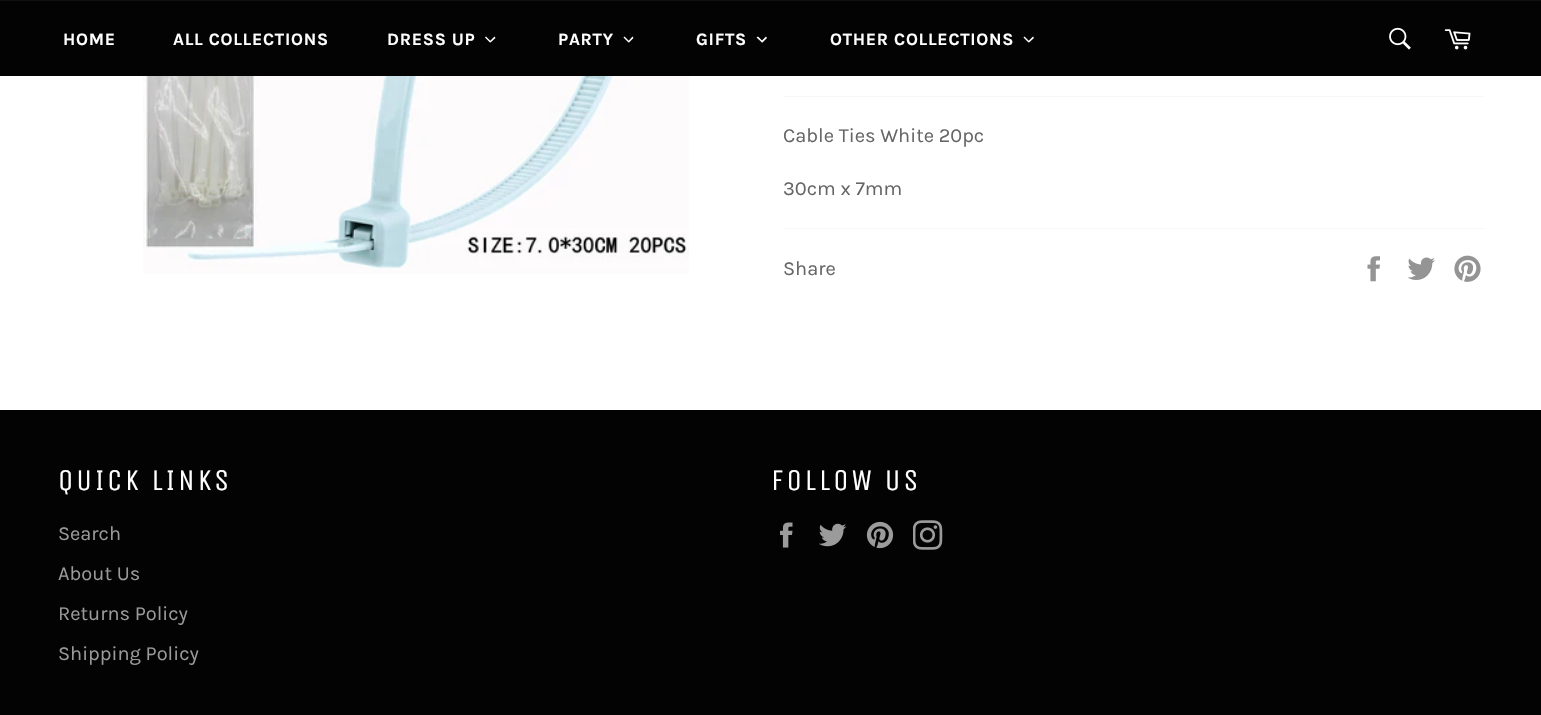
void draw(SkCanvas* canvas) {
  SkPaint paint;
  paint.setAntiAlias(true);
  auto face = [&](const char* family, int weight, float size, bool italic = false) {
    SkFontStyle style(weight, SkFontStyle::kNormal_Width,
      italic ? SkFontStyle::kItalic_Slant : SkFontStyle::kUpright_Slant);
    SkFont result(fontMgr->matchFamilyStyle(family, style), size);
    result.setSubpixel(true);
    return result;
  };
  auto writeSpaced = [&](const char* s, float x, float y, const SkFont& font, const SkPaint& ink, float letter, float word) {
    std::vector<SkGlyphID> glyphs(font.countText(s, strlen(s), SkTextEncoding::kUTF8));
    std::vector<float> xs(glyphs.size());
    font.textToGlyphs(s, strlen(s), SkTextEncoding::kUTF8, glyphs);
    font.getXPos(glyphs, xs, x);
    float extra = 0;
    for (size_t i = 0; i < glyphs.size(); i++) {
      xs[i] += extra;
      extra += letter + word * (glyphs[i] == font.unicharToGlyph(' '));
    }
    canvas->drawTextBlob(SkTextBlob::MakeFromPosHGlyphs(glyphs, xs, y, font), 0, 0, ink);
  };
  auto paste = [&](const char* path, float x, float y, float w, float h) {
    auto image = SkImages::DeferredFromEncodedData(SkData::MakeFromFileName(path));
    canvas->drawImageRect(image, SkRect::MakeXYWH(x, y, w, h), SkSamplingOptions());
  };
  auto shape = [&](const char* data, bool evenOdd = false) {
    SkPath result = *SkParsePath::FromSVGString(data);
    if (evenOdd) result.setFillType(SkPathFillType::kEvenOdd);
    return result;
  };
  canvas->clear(0xffffffff);
  paint.setColor(0xff030303);
  canvas->drawRect(SkRect::MakeXYWH(0, 1, 1541, 75), paint);
  paint.setColor(0xff101010);
  canvas->drawRect(SkRect::MakeXYWH(0, 0, 1541, 1), paint);
  paint.setColor(0xffffffff);
  canvas->drawPath(shape("M494.5 36.5L495.5 38L490.5 42.5L489.5 41.5Z"), paint);
  canvas->drawPath(shape("M486 36.5L491 41.5L490 42.5L485 37.5Z"), paint);
  canvas->drawPath(shape("M632.5 36.5L633.5 38L629 42.5L628 41.5Z"), paint);
  canvas->drawPath(shape("M624.5 36.5L629.5 41.5L628.5 42.5L623.5 37.5Z"), paint);
  canvas->drawPath(shape("M766 36.5L767 38L762.5 42.5L761 41.5Z"), paint);
  canvas->drawPath(shape("M758 36.5L763 41.5L762 42.5L756.5 37.5Z"), paint);
  canvas->drawPath(shape("M1033 36.5L1034 38L1029 42.5L1028 41.5Z"), paint);
  canvas->drawPath(shape("M1024.5 36.5L1029.5 41.5L1028.5 42.5L1023.5 37.5Z"), paint);
  paste("img/1.png", 1389, 27, 22, 23);
  paste("img/2.png", 1444, 29, 27, 21);
  paste("img/3.png", 143, 76, 546, 198);
  paint.setColor(0xfff7f7f7);
  canvas->drawRect(SkRect::MakeXYWH(784, 96, 700, 1), paint);
  canvas->drawRect(SkRect::MakeXYWH(784, 228, 700, 1), paint);
  paste("img/4.png", 1367, 256, 13, 26);
  paste("img/5.png", 1407, 257, 28, 23);
  paste("img/6.png", 1454, 255, 27, 27);
  paint.setColor(0xff030303);
  canvas->drawRect(SkRect::MakeXYWH(0, 410, 1541, 305), paint);
  paste("img/7.png", 780, 522, 13, 26);
  paste("img/8.png", 819, 523, 28, 24);
  paste("img/9.png", 866, 521, 28, 28);
  paste("img/10.png", 913, 520, 30, 30);
  auto f0 = face("Karla", 700, 17.5f);
  paint.setColor(0xffffffff);
  {
    const struct { const char* s; float x, y; } items[] = {
      {"HOME", 63, 45},
      {"ALL COLLECTIONS", 173, 45},
      {"DRESS UP", 387, 45},
      {"PARTY", 558, 45},
      {"GIFTS", 696, 45},
      {"OTHER COLLECTIONS", 830, 45},
    };
    for (auto [s, x, y] : items) {
      writeSpaced(s, x, y, f0, paint, 0.75f, 0);
    }
  }
  auto f1 = face("Karla", 400, 20);
  paint.setColor(0xff666666);
  {
    const struct { const char* s; float x, y; } items[] = {
      {"Cable Ties White 20pc", 783, 142},
      {"30cm x 7mm", 783, 195},
      {"Share", 783, 275},
    };
    for (auto [s, x, y] : items) {
      canvas->drawString(s, x, y, f1, paint);
    }
  }
  auto f2 = face("Unica One", 400, 30);
  paint.setColor(0xffffffff);
  writeSpaced("QUICK LINKS", 58, 490, f2, paint, 3, 0);
  paint.setColor(0xff9a9a9a);
  {
    const struct { const char* s; float x, y; } items[] = {
      {"Search", 58, 540},
      {"About Us", 58, 580},
      {"Returns Policy", 58, 620},
      {"Shipping Policy", 58, 660},
    };
    for (auto [s, x, y] : items) {
      canvas->drawString(s, x, y, f1, paint);
    }
  }
  paint.setColor(0xffffffff);
  writeSpaced("FOLLOW US", 771, 490, f2, paint, 3, 0);
}
